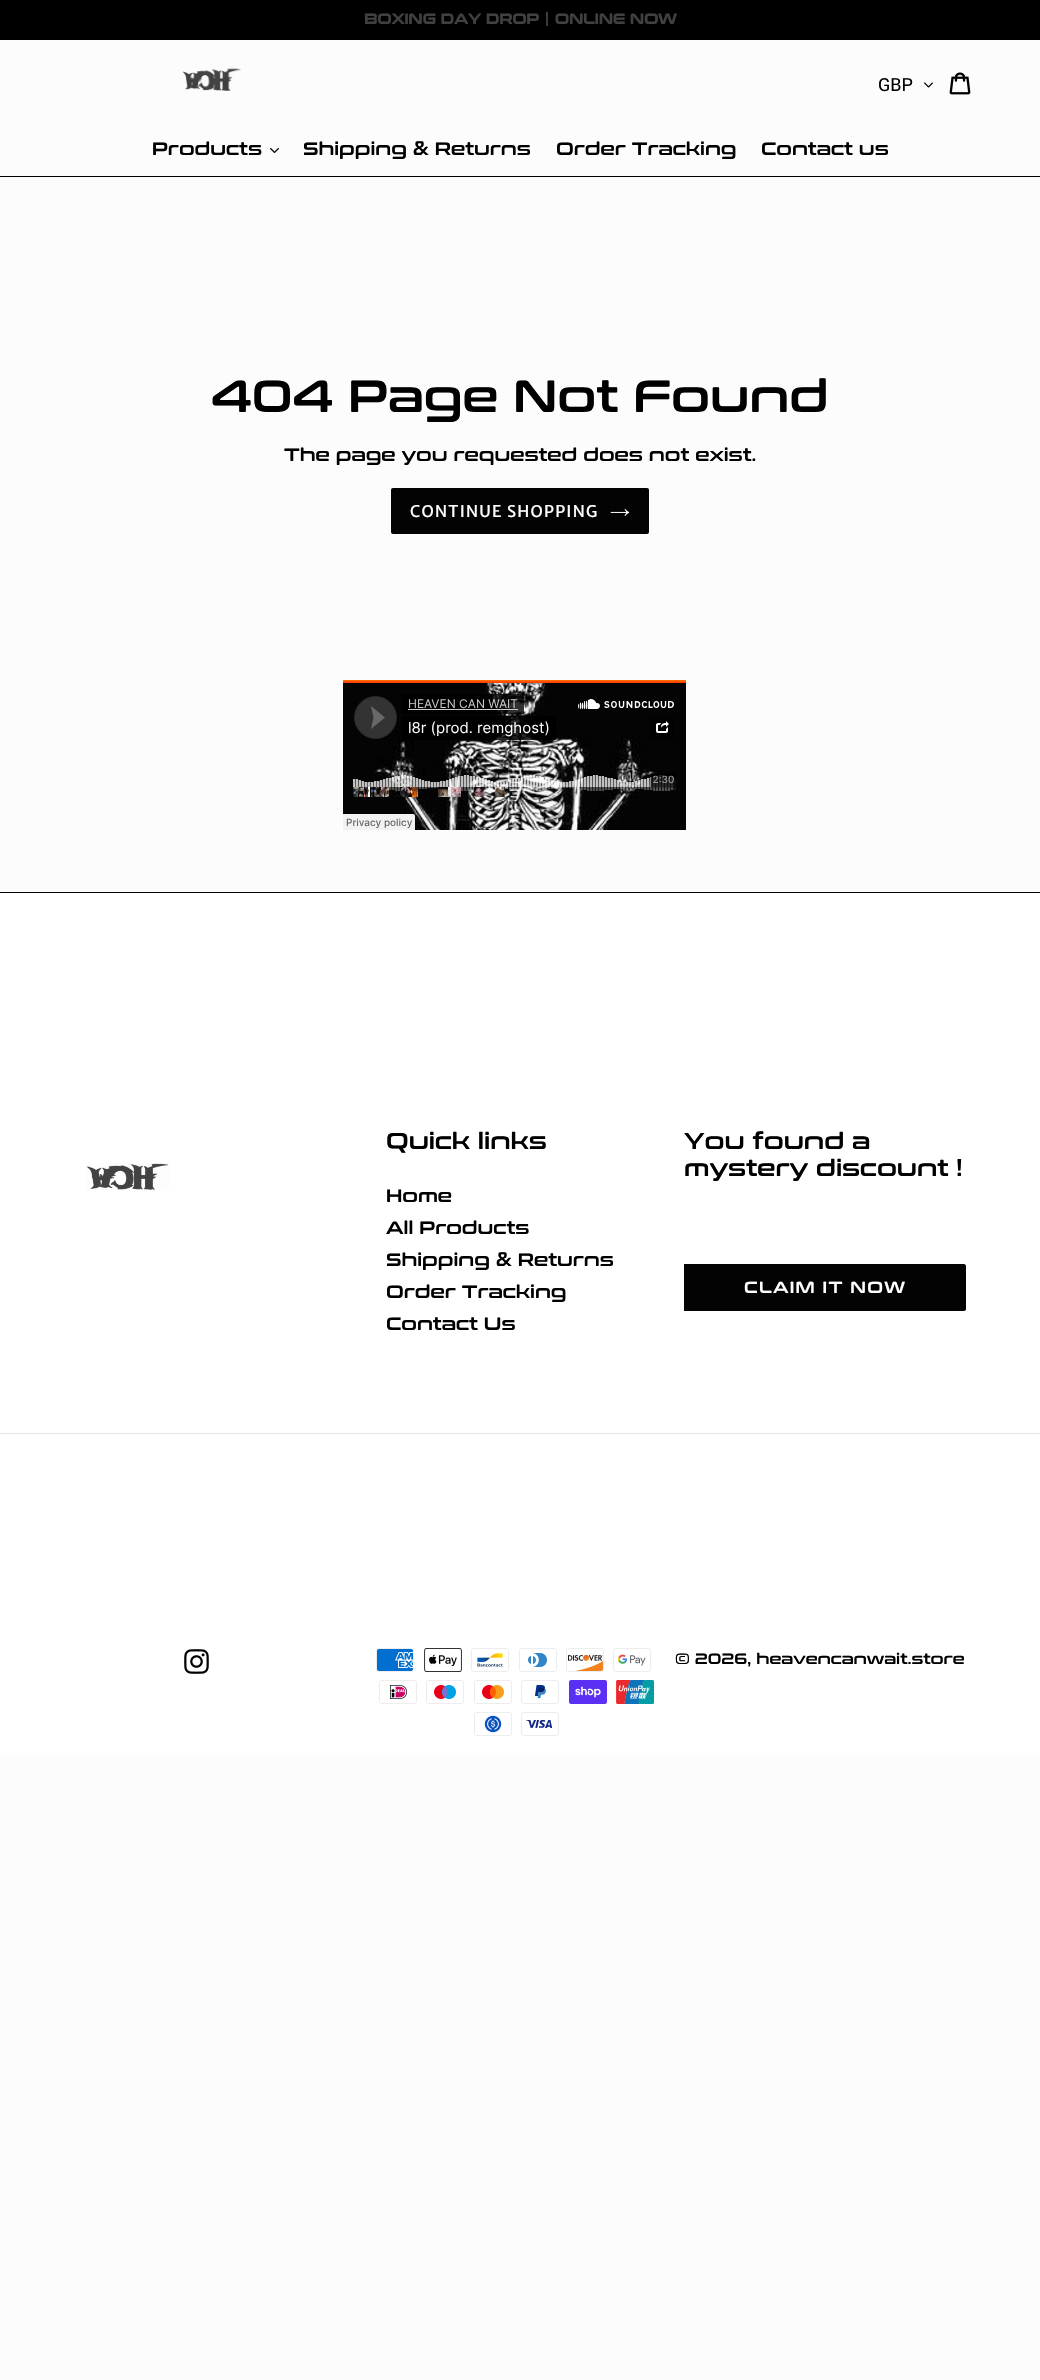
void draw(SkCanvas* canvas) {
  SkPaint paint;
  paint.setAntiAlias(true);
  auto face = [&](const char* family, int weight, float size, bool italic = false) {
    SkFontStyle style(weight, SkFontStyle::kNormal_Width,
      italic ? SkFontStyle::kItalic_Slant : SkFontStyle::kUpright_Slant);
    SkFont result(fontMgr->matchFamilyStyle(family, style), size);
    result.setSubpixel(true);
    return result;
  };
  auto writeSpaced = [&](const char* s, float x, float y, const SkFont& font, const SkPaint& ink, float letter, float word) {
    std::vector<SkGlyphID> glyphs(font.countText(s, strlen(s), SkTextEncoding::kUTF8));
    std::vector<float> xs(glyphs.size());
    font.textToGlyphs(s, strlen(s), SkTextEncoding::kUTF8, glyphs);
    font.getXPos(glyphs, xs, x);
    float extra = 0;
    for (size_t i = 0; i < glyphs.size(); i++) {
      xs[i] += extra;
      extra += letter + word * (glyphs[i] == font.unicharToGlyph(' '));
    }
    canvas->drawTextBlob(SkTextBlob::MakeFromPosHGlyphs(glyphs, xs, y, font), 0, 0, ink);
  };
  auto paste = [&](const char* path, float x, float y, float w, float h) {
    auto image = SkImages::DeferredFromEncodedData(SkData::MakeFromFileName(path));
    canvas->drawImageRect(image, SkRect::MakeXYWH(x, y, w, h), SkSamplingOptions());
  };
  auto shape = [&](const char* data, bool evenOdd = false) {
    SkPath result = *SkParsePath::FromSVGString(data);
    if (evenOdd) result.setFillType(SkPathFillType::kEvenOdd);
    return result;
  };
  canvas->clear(0xfffcfcfc);
  paint.setColor(0xff000000);
  canvas->drawRect(SkRect::MakeXYWH(0, 0, 1040, 40), paint);
  canvas->drawRect(SkRect::MakeXYWH(0, 176, 1040, 1), paint);
  paste("img/1.png", 182, 68, 59, 23);
  paste("img/2.png", 924, 82, 9, 6);
  paste("img/3.png", 949, 72, 22, 23);
  paste("img/4.png", 270, 148, 9, 5);
  paint.setColor(0xff030303);
  canvas->drawRoundRect(SkRect::MakeXYWH(391, 488, 258, 46), 2, 2, paint);
  paste("img/5.png", 610, 508, 20, 8);
  paste("img/6.png", 343, 680, 343, 150);
  paint.setColor(0xffffffff);
  canvas->drawRect(SkRect::MakeXYWH(0, 893, 1040, 863), paint);
  paint.setColor(0xff000000);
  canvas->drawRect(SkRect::MakeXYWH(0, 892, 1040, 1), paint);
  paste("img/7.png", 86, 1163, 83, 27);
  paint.setColor(0xff030303);
  canvas->drawPath(shape("M684 1264H964C965 1264 966 1265 966 1266V1309C966 1310 965 1311 964 1311H684Z"), paint);
  paint.setColor(0xffe6e6e6);
  canvas->drawRect(SkRect::MakeXYWH(0, 1433, 1040, 1), paint);
  paste("img/8.png", 184, 1649, 25, 25);
  paste("img/9.png", 376, 1648, 38, 24);
  paste("img/10.png", 424, 1648, 38, 24);
  paste("img/11.png", 471, 1648, 38, 24);
  paste("img/12.png", 519, 1648, 38, 24);
  paste("img/13.png", 566, 1648, 38, 24);
  paste("img/14.png", 613, 1648, 38, 24);
  paste("img/15.png", 379, 1680, 38, 24);
  paste("img/16.png", 426, 1680, 38, 24);
  paste("img/17.png", 474, 1680, 38, 24);
  paste("img/18.png", 521, 1680, 38, 24);
  paste("img/19.png", 569, 1680, 38, 24);
  paste("img/20.png", 616, 1680, 38, 24);
  paste("img/21.png", 474, 1712, 38, 24);
  paste("img/22.png", 521, 1712, 38, 24);
  auto f0 = face("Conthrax", 700, 14.4f);
  paint.setColor(0xff404040);
  canvas->drawString("BOXING DAY DROP | ONLINE NOW", 364, 24, f0, paint);
  auto f1 = face("Roboto", 400, 18);
  paint.setColor(0xff000000);
  canvas->drawString("GBP", 878, 91, f1, paint);
  auto f2 = face("Conthrax", 400, 18);
  {
    const struct { const char* s; float x, y; } items[] = {
      {"Products", 152, 155},
      {"Shipping & Returns", 303, 155},
      {"Order Tracking", 556, 155},
      {"Contact us", 761, 155},
    };
    for (auto [s, x, y] : items) {
      canvas->drawString(s, x, y, f2, paint);
    }
  }
  auto f3 = face("Conthrax", 400, 45);
  canvas->drawString("404 Page Not Found", 211, 412, f3, paint);
  canvas->drawString("The page you requested does not exist.", 284, 461, f2, paint);
  auto f4 = face("Merriweather Sans", 400, 16);
  paint.setColor(0xffffffff);
  writeSpaced("CONTINUE SHOPPING", 410, 517, f4, paint, 1.25f, 0);
  auto f5 = face("Conthrax", 400, 23);
  paint.setColor(0xff000000);
  canvas->drawString("Quick links", 386, 1149, f5, paint);
  {
    const struct { const char* s; float x, y; } items[] = {
      {"Home", 386, 1202},
      {"All Products", 386, 1234},
      {"Shipping & Returns", 386, 1266},
      {"Order Tracking", 386, 1298},
      {"Contact Us", 386, 1330},
    };
    for (auto [s, x, y] : items) {
      canvas->drawString(s, x, y, f2, paint);
    }
  }
  canvas->drawString("You found a", 684, 1149, f5, paint);
  canvas->drawString("mystery discount !", 684, 1176, f5, paint);
  auto f6 = face("Conthrax", 400, 16);
  paint.setColor(0xffffffff);
  writeSpaced("CLAIM IT NOW", 744, 1293, f6, paint, 1.25f, 0);
  auto f7 = face("Conthrax", 400, 15);
  paint.setColor(0xff000000);
  canvas->drawString("© 2026, heavencanwait.store", 675, 1664, f7, paint);
}
